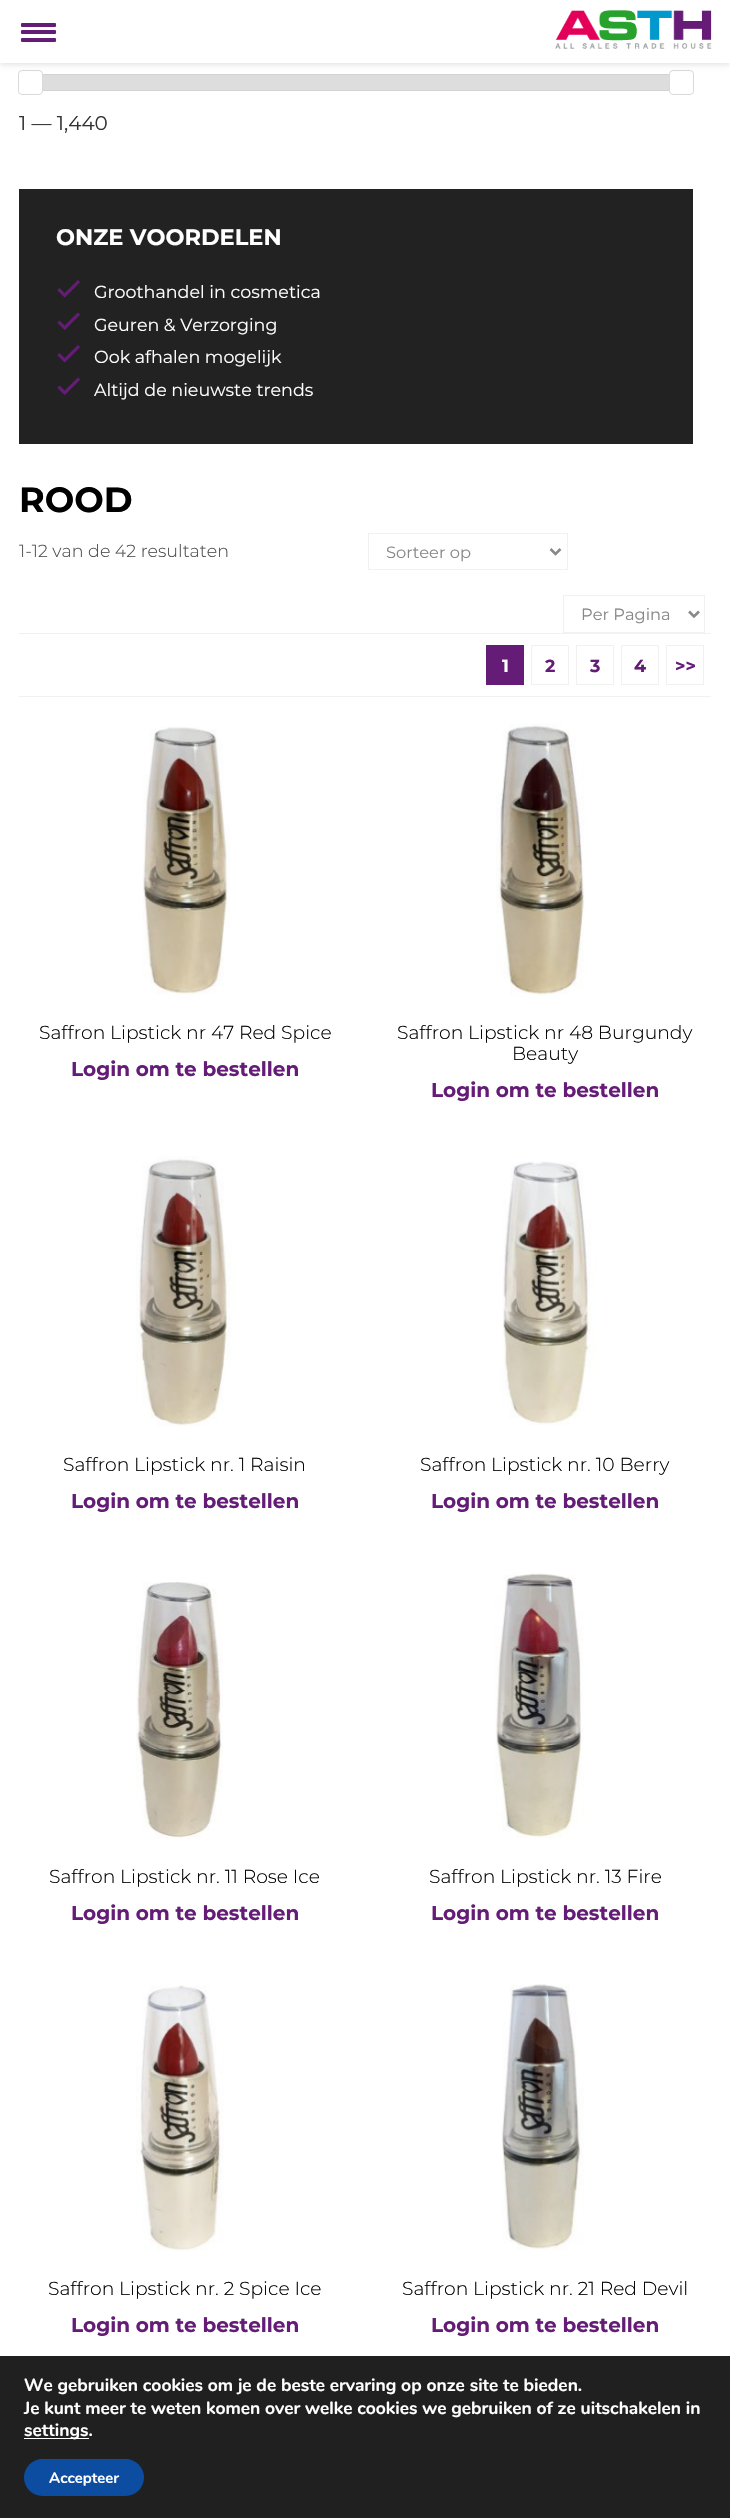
void draw(SkCanvas* canvas) {
  SkPaint paint;
  paint.setAntiAlias(true);
  auto face = [&](const char* family, int weight, float size, bool italic = false) {
    SkFontStyle style(weight, SkFontStyle::kNormal_Width,
      italic ? SkFontStyle::kItalic_Slant : SkFontStyle::kUpright_Slant);
    SkFont result(fontMgr->matchFamilyStyle(family, style), size);
    result.setSubpixel(true);
    return result;
  };
  auto paste = [&](const char* path, float x, float y, float w, float h) {
    auto image = SkImages::DeferredFromEncodedData(SkData::MakeFromFileName(path));
    canvas->drawImageRect(image, SkRect::MakeXYWH(x, y, w, h), SkSamplingOptions());
  };
  auto shape = [&](const char* data, bool evenOdd = false) {
    SkPath result = *SkParsePath::FromSVGString(data);
    if (evenOdd) result.setFillType(SkPathFillType::kEvenOdd);
    return result;
  };
  canvas->clear(0xffffffff);
  paint.setStroke(true);
  paint.setStrokeWidth(1);
  paint.setColor(0xffd3d3d3);
  canvas->drawRect(SkRect::MakeXYWH(19.5f, 74.5f, 673, 16), paint);
  paint.setStroke(false);
  paint.setColor(0xffffffff);
  canvas->drawRoundRect(SkRect::MakeXYWH(18.5f, 70.5f, 24, 24), 3.5f, 3.5f, paint);
  paint.setStroke(true);
  paint.setColor(0xffd9d9d9);
  canvas->drawRoundRect(SkRect::MakeXYWH(18.5f, 70.5f, 24, 24), 3.5f, 3.5f, paint);
  paint.setStroke(false);
  paint.setColor(0xffffffff);
  canvas->drawRoundRect(SkRect::MakeXYWH(669.5f, 70.5f, 24, 24), 3.5f, 3.5f, paint);
  paint.setStroke(true);
  paint.setColor(0xffd9d9d9);
  canvas->drawRoundRect(SkRect::MakeXYWH(669.5f, 70.5f, 24, 24), 3.5f, 3.5f, paint);
  paint.setStroke(false);
  paint.setColor(0x1a000000);
  paint.setMaskFilter(SkMaskFilter::MakeBlur(kNormal_SkBlurStyle, 2.5f));
  canvas->drawRect(SkRect::MakeXYWH(0, 3, 730, 62), paint);
  paint.setMaskFilter(nullptr);
  paint.setColor(0xffffffff);
  canvas->drawRect(SkRect::MakeXYWH(0, 0, 730, 63), paint);
  paint.setColor(0xff651c77);
  canvas->drawRoundRect(SkRect::MakeXYWH(21, 23, 35, 4), 1, 1, paint);
  canvas->drawRoundRect(SkRect::MakeXYWH(21, 30, 35, 4), 1, 1, paint);
  canvas->drawRoundRect(SkRect::MakeXYWH(21, 38, 35, 4), 1, 1, paint);
  paste("img/1.png", 555, 10, 157, 39);
  paint.setColor(0xffdddddd);
  canvas->drawRect(SkRect::MakeXYWH(43, 75, 626, 15), paint);
  paint.setColor(0xff222222);
  canvas->drawRect(SkRect::MakeXYWH(19, 189, 674, 255), paint);
  paste("img/2.png", 57, 280, 23, 18);
  paste("img/3.png", 57, 312, 23, 18);
  paste("img/2.png", 57, 345, 23, 18);
  paste("img/3.png", 57, 377, 23, 18);
  paint.setStroke(true);
  paint.setColor(0xfff1f1f1);
  canvas->drawRect(SkRect::MakeXYWH(368.5f, 533.5f, 199, 36), paint);
  paint.setStrokeWidth(2.5f);
  paint.setColor(0xff888888);
  canvas->drawPath(shape("M550.5 549L555.5 554L560.5 549"), paint);
  paint.setStrokeWidth(1);
  paint.setColor(0xfff1f1f1);
  canvas->drawRect(SkRect::MakeXYWH(563.5f, 595.5f, 141, 37), paint);
  paint.setStrokeWidth(2.5f);
  paint.setColor(0xff888888);
  canvas->drawPath(shape("M689 611.5L694 616.5L699 611.5"), paint);
  paint.setStroke(false);
  {
    const struct { float x, y, w, h; SkColor color; } items[] = {
      {19, 633, 692, 1, 0xfff1f1f1},
      {19, 696, 692, 1, 0xfff1f1f1},
      {486, 645, 38, 40, 0xff651c77},
    };
    for (auto [x, y, w, h, color] : items) {
      paint.setColor(color);
      canvas->drawRect(SkRect::MakeXYWH(x, y, w, h), paint);
    }
  }
  paint.setStroke(true);
  paint.setStrokeWidth(1);
  paint.setColor(0xfff1f1f1);
  canvas->drawRect(SkRect::MakeXYWH(531.5f, 645.5f, 37, 39), paint);
  canvas->drawRect(SkRect::MakeXYWH(576.5f, 645.5f, 37, 39), paint);
  canvas->drawRect(SkRect::MakeXYWH(621.5f, 645.5f, 37, 39), paint);
  canvas->drawRect(SkRect::MakeXYWH(666.5f, 645.5f, 37, 39), paint);
  paste("img/4.png", 142, 727, 88, 268);
  paste("img/5.png", 496, 723, 89, 274);
  paste("img/6.png", 136, 1156, 99, 270);
  paste("img/7.png", 499, 1161, 99, 264);
  paste("img/8.png", 136, 1582, 87, 257);
  paste("img/9.png", 495, 1572, 89, 266);
  paste("img/10.png", 136, 1985, 88, 266);
  paste("img/11.png", 501, 1984, 83, 266);
  paint.setStroke(false);
  paint.setColor(0xff202020);
  canvas->drawRect(SkRect::MakeXYWH(0, 2356, 730, 162), paint);
  paint.setColor(0xffffffff);
  canvas->drawRect(SkRect::MakeXYWH(24, 2438, 65, 1), paint);
  paint.setColor(0xff0c4da2);
  canvas->drawRoundRect(SkRect::MakeXYWH(24, 2459, 120, 37), 18.5f, 18.5f, paint);
  auto f0 = face("Montserrat", 400, 20);
  paint.setColor(0xff333333);
  canvas->drawString("1 — 1,440", 19, 130, f0, paint);
  auto f1 = face("Montserrat", 700, 22.5f);
  paint.setColor(0xffffffff);
  canvas->drawString("ONZE VOORDELEN", 56, 245, f1, paint);
  auto f2 = face("Montserrat", 400, 17.5f);
  {
    const struct { const char* s; float x, y; } items[] = {
      {"Groothandel in cosmetica", 94, 298},
      {"Geuren & Verzorging", 94, 331},
      {"Ook afhalen mogelijk", 94, 363},
      {"Altijd de nieuwste trends", 94, 396},
    };
    for (auto [s, x, y] : items) {
      canvas->drawString(s, x, y, f2, paint);
    }
  }
  auto f3 = face("Montserrat", 700, 35);
  paint.setColor(0xff000000);
  canvas->drawString("ROOD", 19, 512, f3, paint);
  auto f4 = face("Montserrat", 300, 17.5f);
  paint.setColor(0xff4d4d4d);
  canvas->drawString("1-12 van de 42 resultaten", 19, 557, f4, paint);
  auto f5 = face("Montserrat", 400, 16.25f);
  paint.setColor(0xff888888);
  canvas->drawString("Sorteer op", 386, 558, f5, paint);
  canvas->drawString("Per Pagina", 581, 620, f5, paint);
  auto f6 = face("Montserrat", 700, 17.5f);
  paint.setColor(0xffffffff);
  canvas->drawString("1", 502, 672, f6, paint);
  paint.setColor(0xff651c77);
  {
    const struct { const char* s; float x, y; } items[] = {
      {"2", 545, 672},
      {"3", 590, 672},
      {"4", 634, 672},
      {">>", 675, 672},
    };
    for (auto [s, x, y] : items) {
      canvas->drawString(s, x, y, f6, paint);
    }
  }
  auto f7 = face("Montserrat", 300, 18.75f);
  paint.setColor(0xff000000);
  canvas->drawString("Saffron Lipstick nr 47 Red Spice", 39, 1039, f7, paint);
  auto f8 = face("Montserrat", 700, 20);
  paint.setColor(0xff651c77);
  canvas->drawString("Login om te bestellen", 71, 1076, f8, paint);
  paint.setColor(0xff000000);
  canvas->drawString("Saffron Lipstick nr 48 Burgundy", 397, 1039, f7, paint);
  canvas->drawString("Beauty", 512, 1060, f7, paint);
  paint.setColor(0xff651c77);
  canvas->drawString("Login om te bestellen", 431, 1097, f8, paint);
  paint.setColor(0xff000000);
  canvas->drawString("Saffron Lipstick nr. 1 Raisin", 63, 1471, f7, paint);
  paint.setColor(0xff651c77);
  canvas->drawString("Login om te bestellen", 71, 1508, f8, paint);
  paint.setColor(0xff000000);
  canvas->drawString("Saffron Lipstick nr. 10 Berry", 420, 1471, f7, paint);
  paint.setColor(0xff651c77);
  canvas->drawString("Login om te bestellen", 431, 1508, f8, paint);
  paint.setColor(0xff000000);
  canvas->drawString("Saffron Lipstick nr. 11 Rose Ice", 49, 1883, f7, paint);
  paint.setColor(0xff651c77);
  canvas->drawString("Login om te bestellen", 71, 1920, f8, paint);
  paint.setColor(0xff000000);
  canvas->drawString("Saffron Lipstick nr. 13 Fire", 429, 1883, f7, paint);
  paint.setColor(0xff651c77);
  canvas->drawString("Login om te bestellen", 431, 1920, f8, paint);
  paint.setColor(0xff000000);
  canvas->drawString("Saffron Lipstick nr. 2 Spice Ice", 48, 2295, f7, paint);
  paint.setColor(0xff651c77);
  canvas->drawString("Login om te bestellen", 71, 2332, f8, paint);
  paint.setColor(0xff000000);
  canvas->drawString("Saffron Lipstick nr. 21 Red Devil", 402, 2295, f7, paint);
  paint.setColor(0xff651c77);
  canvas->drawString("Login om te bestellen", 431, 2332, f8, paint);
  auto f9 = face("Nunito", 700, 17.5f);
  paint.setColor(0xffffffff);
  {
    const struct { const char* s; float x, y; } items[] = {
      {"We gebruiken cookies om je de beste ervaring op onze site te bieden.", 24, 2391},
      {"Je kunt meer te weten komen over welke cookies we gebruiken of ze uitschakelen in", 24, 2414},
      {"settings.", 24, 2436},
    };
    for (auto [s, x, y] : items) {
      canvas->drawString(s, x, y, f9, paint);
    }
  }
  auto f10 = face("Nunito", 700, 15);
  canvas->drawString("Accepteer", 49, 2483, f10, paint);
}
